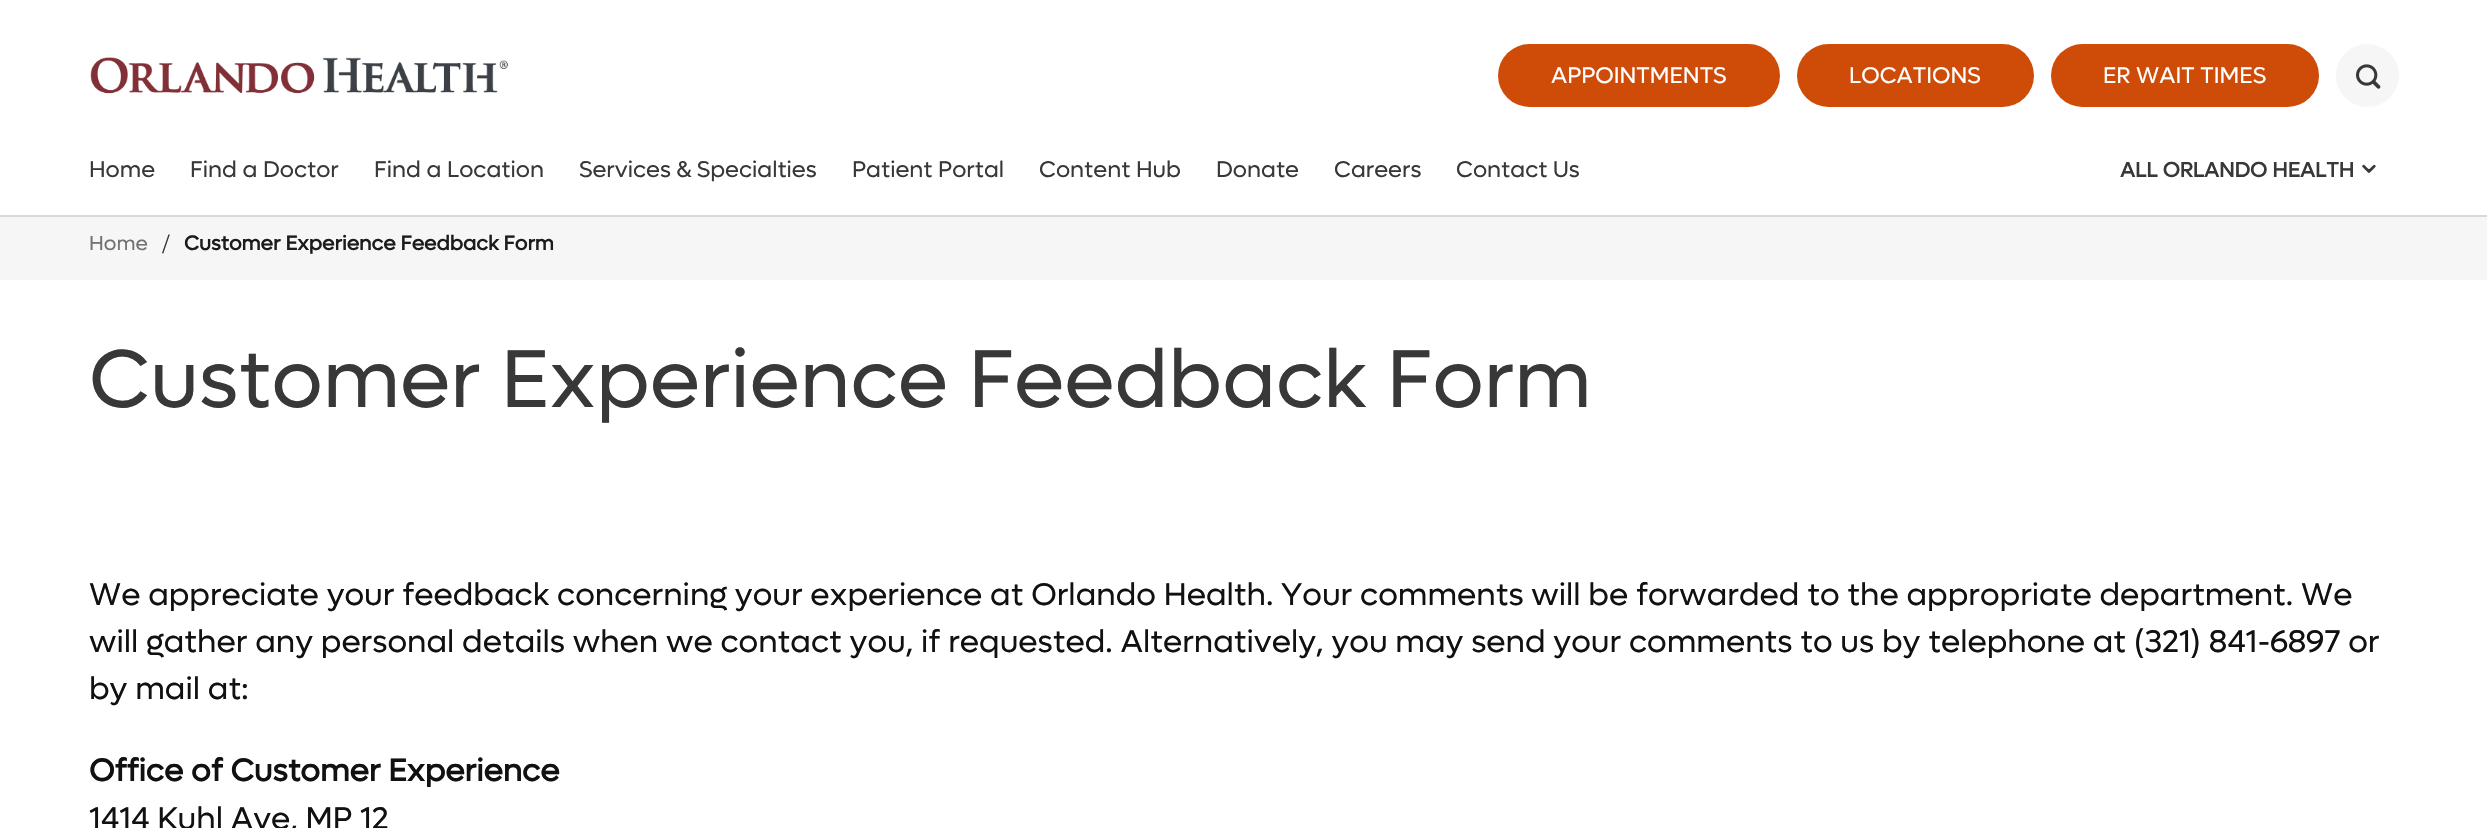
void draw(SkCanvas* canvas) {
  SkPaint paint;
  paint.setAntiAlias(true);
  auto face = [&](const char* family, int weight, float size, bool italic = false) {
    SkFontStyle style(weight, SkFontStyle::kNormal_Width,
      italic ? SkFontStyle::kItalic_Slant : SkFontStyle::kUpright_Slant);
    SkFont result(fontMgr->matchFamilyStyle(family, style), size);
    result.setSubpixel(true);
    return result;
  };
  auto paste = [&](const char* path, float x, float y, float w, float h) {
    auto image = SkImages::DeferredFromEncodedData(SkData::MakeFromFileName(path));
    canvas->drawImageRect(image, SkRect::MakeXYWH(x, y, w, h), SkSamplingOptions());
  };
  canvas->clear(0xffffffff);
  paint.setColor(0xffd9d9d9);
  canvas->drawRect(SkRect::MakeXYWH(0, 215, 2487, 2), paint);
  paste("img/1.png", 90, 57, 419, 37);
  paint.setColor(0xffcf4b08);
  canvas->drawRoundRect(SkRect::MakeXYWH(1498, 44, 282, 63), 31.5f, 31.5f, paint);
  canvas->drawRoundRect(SkRect::MakeXYWH(1797, 44, 237, 63), 31.5f, 31.5f, paint);
  canvas->drawRoundRect(SkRect::MakeXYWH(2051, 44, 268, 63), 31.5f, 31.5f, paint);
  paint.setColor(0xfff6f6f6);
  canvas->drawCircle(2367.5f, 75.5f, 31.5f, paint);
  paste("img/2.png", 2356, 64, 25, 25);
  paste("img/3.png", 2362, 164, 14, 9);
  canvas->drawRect(SkRect::MakeXYWH(0, 217, 2487, 63), paint);
  auto f0 = face("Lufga", 400, 22.75f);
  paint.setColor(0xffffffff);
  {
    const struct { const char* s; float x, y; } items[] = {
      {"APPOINTMENTS", 1551, 83},
      {"LOCATIONS", 1849, 83},
      {"ER WAIT TIMES", 2103, 83},
    };
    for (auto [s, x, y] : items) {
      canvas->drawString(s, x, y, f0, paint);
    }
  }
  paint.setColor(0xff393839);
  {
    const struct { const char* s; float x, y; } items[] = {
      {"Home", 89, 177},
      {"Find a Doctor", 190, 177},
      {"Find a Location", 374, 177},
      {"Services & Specialties", 579, 177},
      {"Patient Portal", 852, 177},
      {"Content Hub", 1039, 177},
      {"Donate", 1216, 177},
      {"Careers", 1334, 177},
      {"Contact Us", 1456, 177},
    };
    for (auto [s, x, y] : items) {
      canvas->drawString(s, x, y, f0, paint);
    }
  }
  auto f1 = face("Lufga", 700, 21);
  canvas->drawString("ALL ORLANDO HEALTH", 2120, 177, f1, paint);
  auto f2 = face("Lufga", 400, 20.25f);
  paint.setColor(0xff727272);
  canvas->drawString("Home", 89, 250, f2, paint);
  auto f3 = face("Liberation Serif", 400, 28);
  paint.setColor(0xff393839);
  canvas->drawString("/", 162, 253, f3, paint);
  auto f4 = face("Lufga", 700, 20.25f);
  paint.setColor(0xff1c1c1c);
  canvas->drawString("Customer Experience Feedback Form", 184, 250, f4, paint);
  auto f5 = face("Lufga", 400, 82.25f);
  paint.setColor(0xff393839);
  canvas->drawString("Customer Experience Feedback Form", 89, 407, f5, paint);
  auto f6 = face("Lufga", 400, 31.5f);
  paint.setColor(0xff111111);
  {
    const struct { const char* s; float x, y; } items[] = {
      {"We appreciate your feedback concerning your experience at Orlando Health. Your comments will be forwarded to the appropriate department. We", 89, 605},
      {"will gather any personal details when we contact you, if requested. Alternatively, you may send your comments to us by telephone at (321) 841-6897 or", 89, 652},
      {"by mail at:", 89, 699},
    };
    for (auto [s, x, y] : items) {
      canvas->drawString(s, x, y, f6, paint);
    }
  }
  auto f7 = face("Lufga", 700, 31.5f);
  canvas->drawString("Office of Customer Experience", 89, 781, f7, paint);
  canvas->drawString("1414 Kuhl Ave, MP 12", 89, 829, f6, paint);
}
